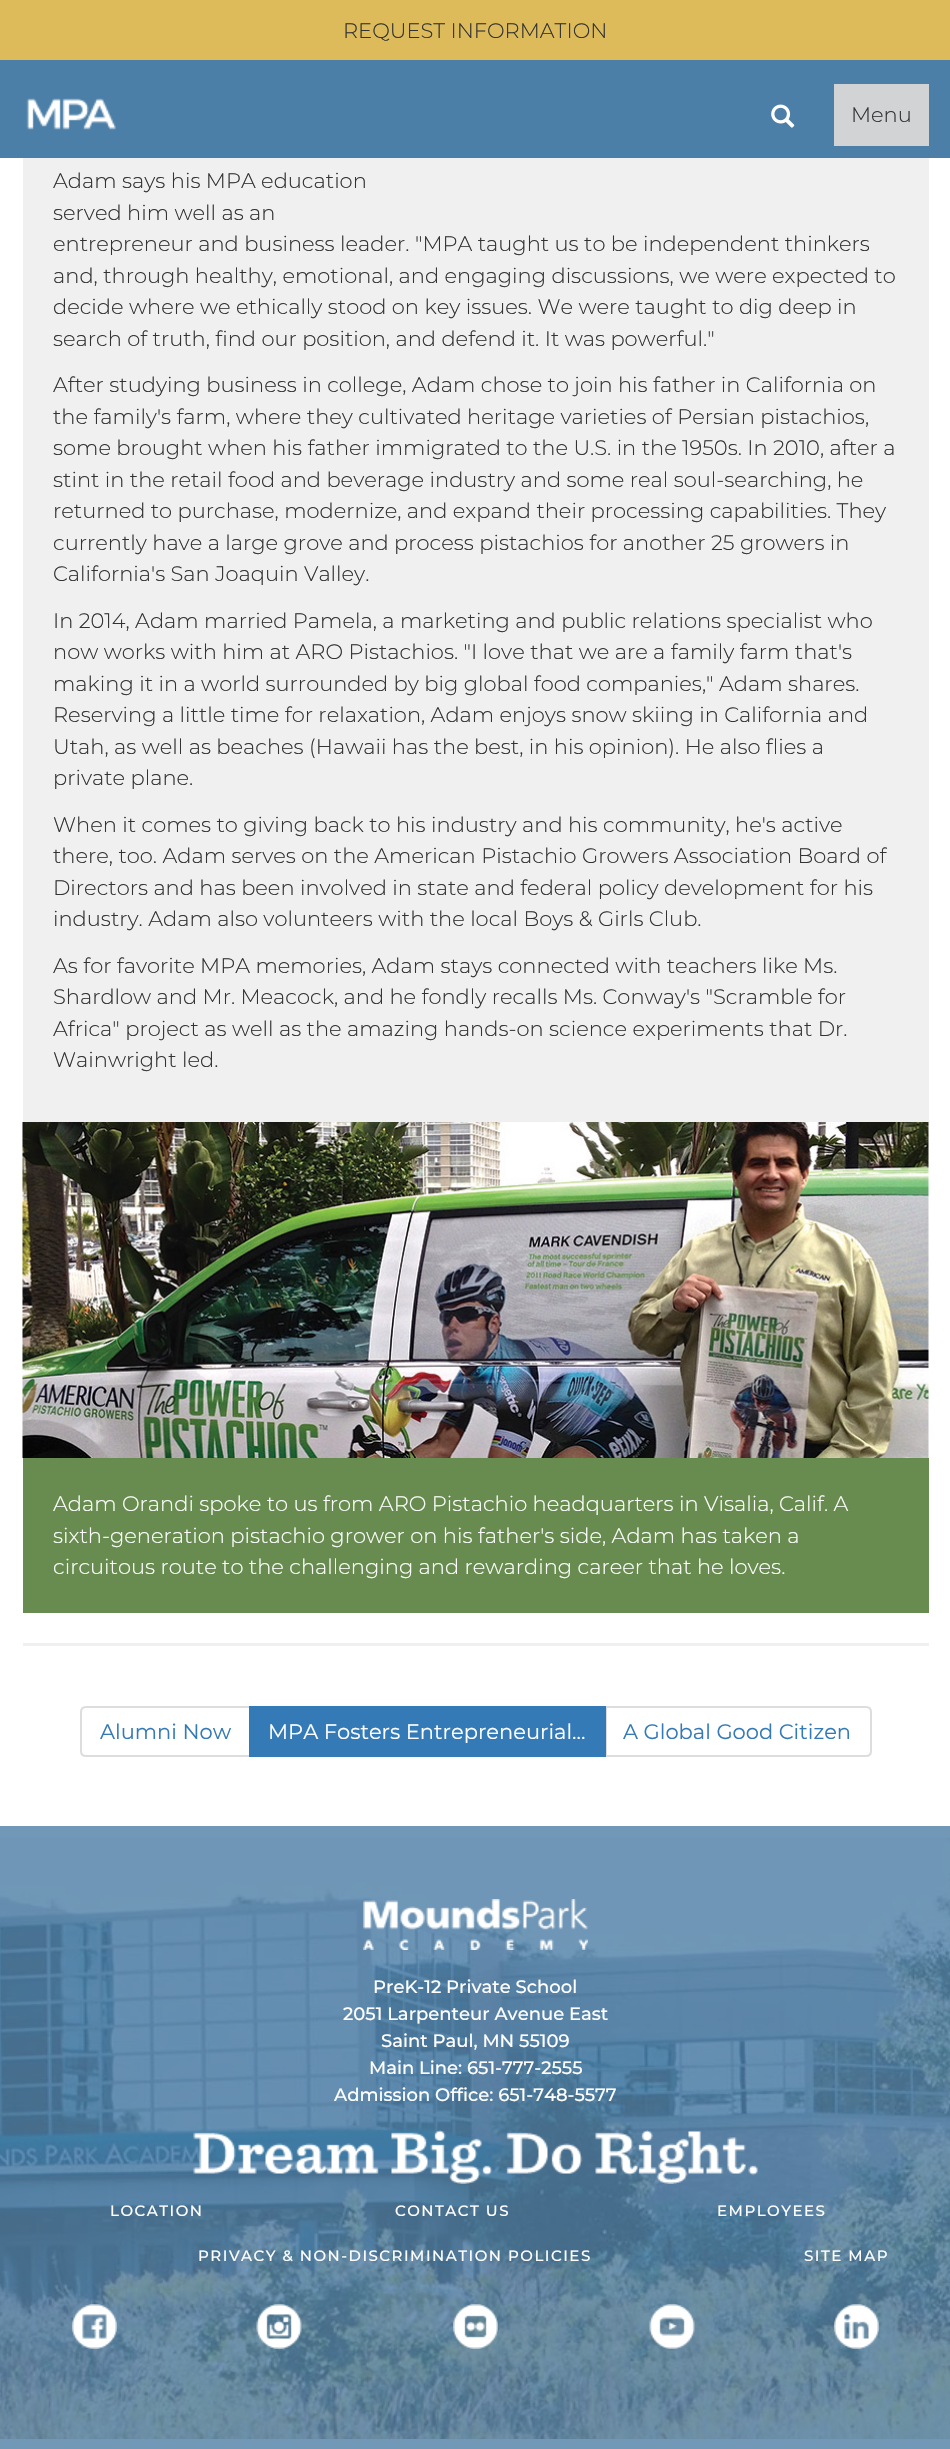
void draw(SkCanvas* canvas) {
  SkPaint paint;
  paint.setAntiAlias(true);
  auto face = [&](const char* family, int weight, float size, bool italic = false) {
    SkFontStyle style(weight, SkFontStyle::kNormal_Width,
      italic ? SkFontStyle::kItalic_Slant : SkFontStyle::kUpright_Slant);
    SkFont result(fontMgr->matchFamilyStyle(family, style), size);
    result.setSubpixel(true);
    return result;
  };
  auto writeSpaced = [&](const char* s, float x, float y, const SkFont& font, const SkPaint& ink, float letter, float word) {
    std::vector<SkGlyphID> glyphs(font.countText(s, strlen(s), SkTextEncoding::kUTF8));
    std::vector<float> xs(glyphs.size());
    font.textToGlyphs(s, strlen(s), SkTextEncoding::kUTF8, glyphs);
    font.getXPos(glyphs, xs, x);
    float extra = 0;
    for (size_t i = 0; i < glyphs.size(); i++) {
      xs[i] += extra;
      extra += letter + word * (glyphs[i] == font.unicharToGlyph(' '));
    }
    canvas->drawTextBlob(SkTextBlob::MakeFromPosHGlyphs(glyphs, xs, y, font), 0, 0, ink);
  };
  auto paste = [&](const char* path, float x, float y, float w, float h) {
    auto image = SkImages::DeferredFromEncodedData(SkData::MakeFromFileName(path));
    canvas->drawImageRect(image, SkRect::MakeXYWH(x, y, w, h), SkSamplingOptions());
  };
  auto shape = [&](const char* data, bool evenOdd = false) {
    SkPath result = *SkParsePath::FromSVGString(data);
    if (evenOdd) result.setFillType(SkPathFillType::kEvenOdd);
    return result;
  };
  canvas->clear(0xffffffff);
  {
    const struct { float x, y, w, h; SkColor color; } items[] = {
      {0, 1826, 950, 623, 0xff7198b7},
      {0, 60, 950, 98, 0xff4c7fa7},
      {0, 0, 950, 60, 0xffddbb5b},
    };
    for (auto [x, y, w, h, color] : items) {
      paint.setColor(color);
      canvas->drawRect(SkRect::MakeXYWH(x, y, w, h), paint);
    }
  }
  paste("img/1.png", 26, 98, 90, 32);
  paste("img/2.png", 771, 104, 24, 24);
  paint.setColor(0xffd1d3d4);
  canvas->drawRect(SkRect::MakeXYWH(834, 84, 95, 62), paint);
  paint.setColor(0xfff0f0f0);
  canvas->drawRect(SkRect::MakeXYWH(23, 158, 906, 964), paint);
  paste("img/3.png", 22, 1122, 907, 336);
  paint.setColor(0xff688c50);
  canvas->drawRect(SkRect::MakeXYWH(23, 1458, 906, 155), paint);
  paint.setColor(0xfff0f0f0);
  canvas->drawRect(SkRect::MakeXYWH(23, 1643, 906, 3), paint);
  paint.setStroke(true);
  paint.setStrokeWidth(2);
  paint.setColor(0xffdddddd);
  canvas->drawPath(shape("M86 1707H250V1756H86C83 1756 81 1754 81 1751V1712C81 1709 83 1707 86 1707Z"), paint);
  canvas->drawPath(shape("M606 1707H866C869 1707 871 1709 871 1712V1751C871 1754 869 1756 866 1756H606Z"), paint);
  paint.setStroke(false);
  paint.setColor(0xff337ab7);
  canvas->drawRect(SkRect::MakeXYWH(249, 1706, 357, 51), paint);
  paste("img/4.png", 0, 1837, 950, 602);
  paste("img/5.png", 363, 1899, 225, 51);
  paste("img/6.png", 193, 2130, 565, 54);
  paste("img/7.png", 72, 2304, 45, 45);
  paste("img/8.png", 256, 2304, 46, 45);
  paste("img/9.png", 453, 2304, 45, 45);
  paste("img/10.png", 649, 2304, 46, 45);
  paste("img/11.png", 834, 2304, 45, 45);
  auto f0 = face("Montserrat", 300, 21);
  paint.setColor(0xff333333);
  {
    const struct { const char* s; float x, y; } items[] = {
      {"REQUEST INFORMATION", 343, 38},
      {"Menu", 851, 122},
      {"Adam says his MPA education", 53, 188},
      {"served him well as an", 53, 220},
      {"entrepreneur and business leader. \"MPA taught us to be independent thinkers", 53, 251},
      {"and, through healthy, emotional, and engaging discussions, we were expected to", 53, 283},
      {"decide where we ethically stood on key issues. We were taught to dig deep in", 53, 314},
      {"search of truth, find our position, and defend it. It was powerful.\"", 53, 346},
      {"After studying business in college, Adam chose to join his father in California on", 53, 392},
      {"the family's farm, where they cultivated heritage varieties of Persian pistachios,", 53, 424},
      {"some brought when his father immigrated to the U.S. in the 1950s. In 2010, after a", 53, 455},
      {"stint in the retail food and beverage industry and some real soul-searching, he", 53, 487},
      {"returned to purchase, modernize, and expand their processing capabilities. They", 53, 518},
      {"currently have a large grove and process pistachios for another 25 growers in", 53, 550},
      {"California's San Joaquin Valley.", 53, 581},
      {"In 2014, Adam married Pamela, a marketing and public relations specialist who", 53, 628},
      {"now works with him at ARO Pistachios. \"I love that we are a family farm that's", 53, 659},
      {"making it in a world surrounded by big global food companies,\" Adam shares.", 53, 691},
      {"Reserving a little time for relaxation, Adam enjoys snow skiing in California and", 53, 722},
      {"Utah, as well as beaches (Hawaii has the best, in his opinion). He also flies a", 53, 754},
      {"private plane.", 53, 785},
      {"When it comes to giving back to his industry and his community, he's active", 53, 832},
      {"there, too. Adam serves on the American Pistachio Growers Association Board of", 53, 863},
      {"Directors and has been involved in state and federal policy development for his", 53, 895},
      {"industry. Adam also volunteers with the local Boys & Girls Club.", 53, 926},
      {"As for favorite MPA memories, Adam stays connected with teachers like Ms.", 53, 973},
      {"Shardlow and Mr. Meacock, and he fondly recalls Ms. Conway's \"Scramble for", 53, 1004},
      {"Africa\" project as well as the amazing hands-on science experiments that Dr.", 53, 1036},
      {"Wainwright led.", 53, 1067},
    };
    for (auto [s, x, y] : items) {
      canvas->drawString(s, x, y, f0, paint);
    }
  }
  paint.setColor(0xffffffff);
  {
    const struct { const char* s; float x, y; } items[] = {
      {"Adam Orandi spoke to us from ARO Pistachio headquarters in Visalia, Calif. A", 53, 1511},
      {"sixth-generation pistachio grower on his father's side, Adam has taken a", 53, 1543},
      {"circuitous route to the challenging and rewarding career that he loves.", 53, 1574},
    };
    for (auto [s, x, y] : items) {
      canvas->drawString(s, x, y, f0, paint);
    }
  }
  auto f1 = face("Montserrat", 400, 21);
  paint.setColor(0xff337ab7);
  canvas->drawString("Alumni Now", 100, 1739, f1, paint);
  paint.setColor(0xffffffff);
  canvas->drawString("MPA Fosters Entrepreneurial...", 268, 1739, f1, paint);
  paint.setColor(0xff337ab7);
  canvas->drawString("A Global Good Citizen", 623, 1739, f1, paint);
  auto f2 = face("Montserrat", 500, 18);
  paint.setColor(0xffffffff);
  {
    const struct { const char* s; float x, y; } items[] = {
      {"PreK-12 Private School", 373, 1993},
      {"2051 Larpenteur Avenue East", 343, 2020},
      {"Saint Paul, MN 55109", 381, 2047},
      {"Main Line: 651-777-2555", 369, 2074},
      {"Admission Office: 651-748-5577", 334, 2101},
    };
    for (auto [s, x, y] : items) {
      canvas->drawString(s, x, y, f2, paint);
    }
  }
  auto f3 = face("Montserrat", 500, 15);
  {
    const struct { const char* s; float x, y; } items[] = {
      {"LOCATION", 110, 2216},
      {"CONTACT US", 395, 2216},
      {"EMPLOYEES", 717, 2216},
      {"PRIVACY & NON-DISCRIMINATION POLICIES", 198, 2261},
      {"SITE MAP", 804, 2261},
    };
    for (auto [s, x, y] : items) {
      writeSpaced(s, x, y, f3, paint, 1.5f, 0);
    }
  }
}
